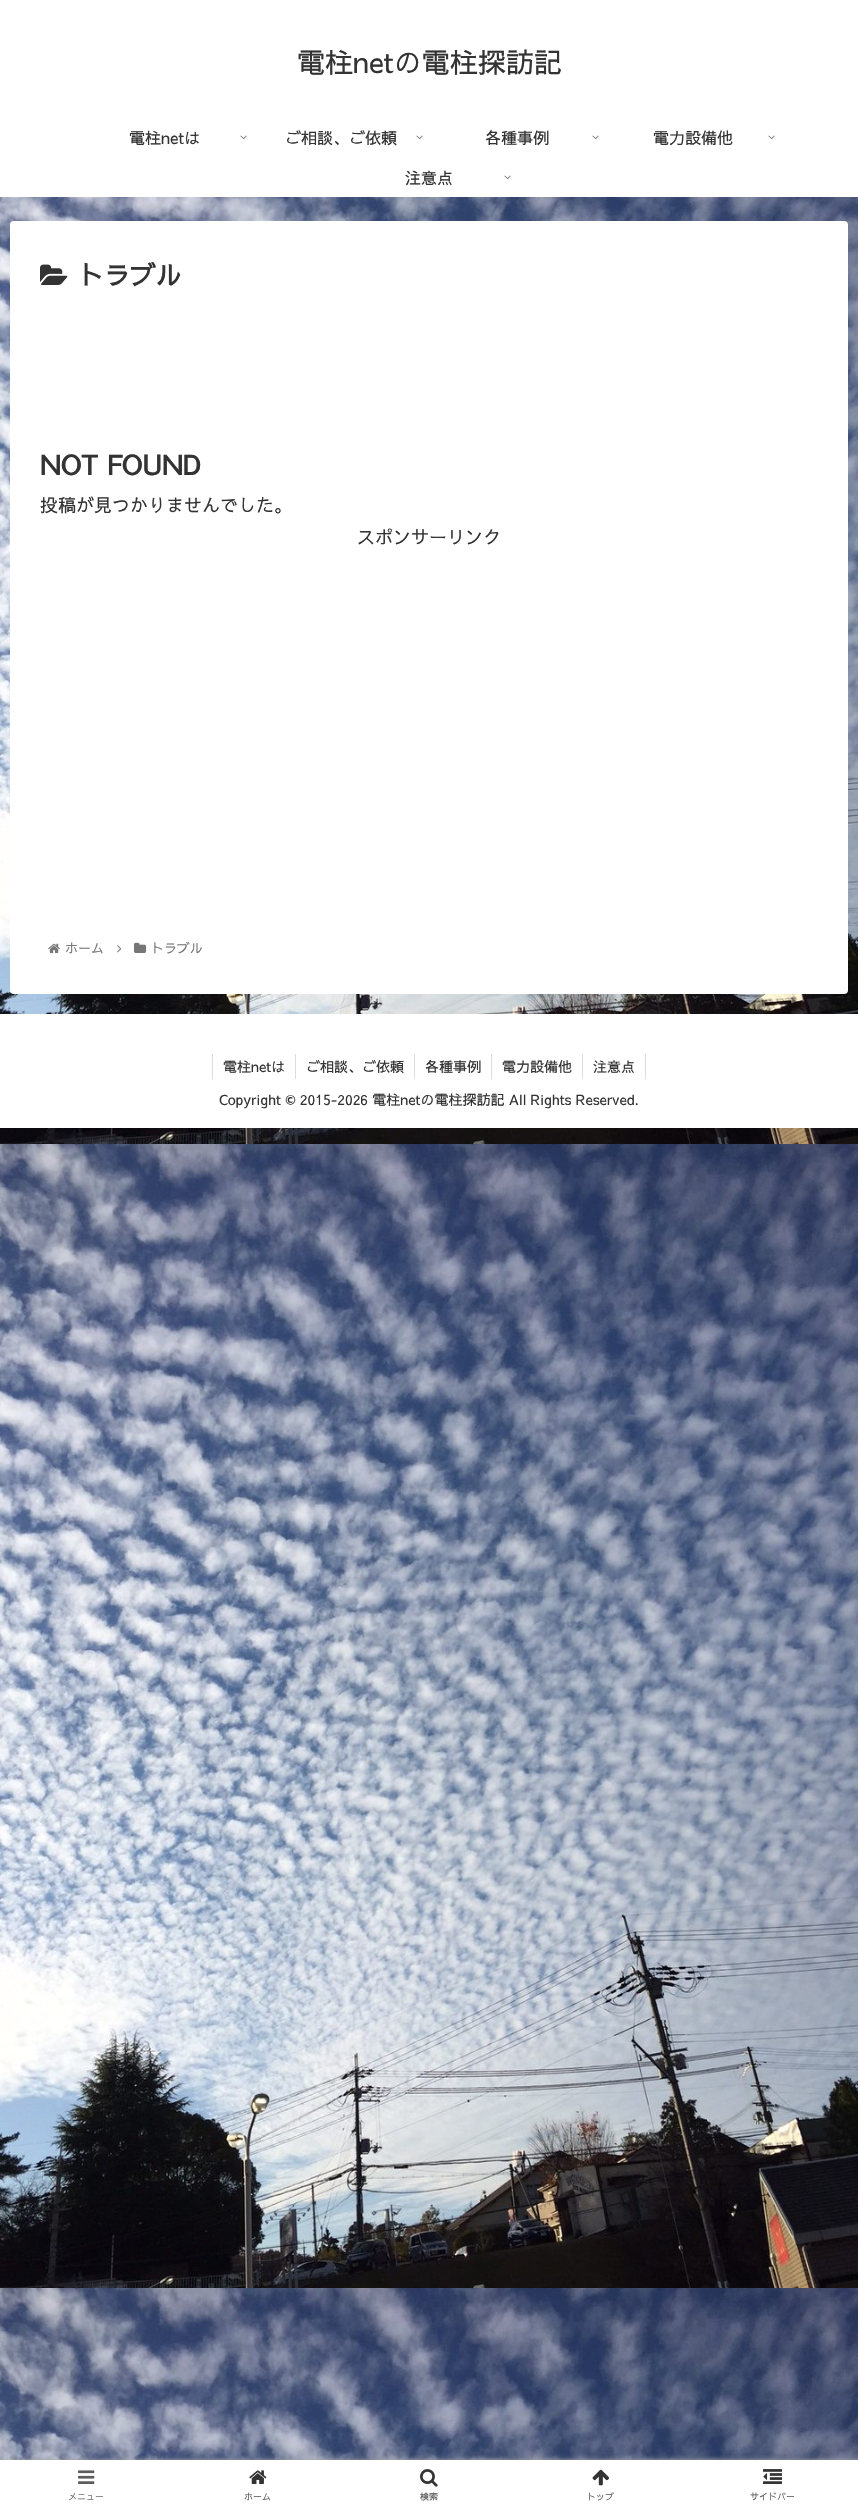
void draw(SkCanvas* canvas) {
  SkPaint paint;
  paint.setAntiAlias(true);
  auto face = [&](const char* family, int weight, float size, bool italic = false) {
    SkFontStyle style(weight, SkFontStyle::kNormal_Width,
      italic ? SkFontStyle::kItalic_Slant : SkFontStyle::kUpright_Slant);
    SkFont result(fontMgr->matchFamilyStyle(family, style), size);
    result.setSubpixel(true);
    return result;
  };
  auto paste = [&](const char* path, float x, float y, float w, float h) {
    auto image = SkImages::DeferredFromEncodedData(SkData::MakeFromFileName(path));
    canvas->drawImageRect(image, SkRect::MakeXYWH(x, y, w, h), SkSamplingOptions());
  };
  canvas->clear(0xffffffff);
  paste("img/1.png", 0, 197, 858, 2263);
  paste("img/2.png", 240, 135, 7, 5);
  paste("img/2.png", 416, 135, 7, 5);
  paste("img/2.png", 592, 135, 7, 5);
  paste("img/2.png", 768, 135, 7, 5);
  paste("img/2.png", 504, 175, 7, 5);
  paint.setColor(0xffffffff);
  canvas->drawRoundRect(SkRect::MakeXYWH(10, 221, 838, 773), 4, 4, paint);
  paste("img/3.png", 40, 264, 28, 21);
  paste("img/4.png", 48, 943, 12, 10);
  paste("img/5.png", 117, 945, 5, 8);
  paste("img/6.png", 134, 942, 13, 11);
  {
    const struct { float x, y, w, h; SkColor color; } items[] = {
      {0, 1014, 858, 114, 0xffffffff},
      {212, 1054, 1, 25, 0xffdddddd},
      {295, 1054, 1, 25, 0xffdddddd},
      {414, 1054, 1, 25, 0xffdddddd},
      {491, 1054, 1, 25, 0xffdddddd},
      {645, 1054, 1, 25, 0xffdddddd},
      {582, 1054, 1, 25, 0xffdddddd},
    };
    for (auto [x, y, w, h, color] : items) {
      paint.setColor(color);
      canvas->drawRect(SkRect::MakeXYWH(x, y, w, h), paint);
    }
  }
  paint.setColor(0xffa9a9a9);
  paint.setMaskFilter(SkMaskFilter::MakeBlur(kNormal_SkBlurStyle, 2.5f));
  canvas->drawRect(SkRect::MakeXYWH(0, 2460, 858, 50), paint);
  paint.setMaskFilter(nullptr);
  paint.setColor(0xffffffff);
  canvas->drawRect(SkRect::MakeXYWH(0, 2460, 858, 50), paint);
  paste("img/7.png", 78, 2470, 17, 14);
  paste("img/8.png", 249, 2470, 18, 14);
  paste("img/9.png", 420, 2469, 18, 18);
  paste("img/10.png", 592, 2469, 17, 17);
  paste("img/11.png", 763, 2469, 19, 15);
  auto f0 = face("Sawarabi Gothic", 400, 28);
  paint.setColor(0xff333333);
  canvas->drawString("電柱netの電柱探訪記", 297, 73, f0, paint);
  auto f1 = face("Sawarabi Gothic", 400, 16);
  {
    const struct { const char* s; float x, y; } items[] = {
      {"電柱netは", 129, 144},
      {"ご相談、ご依頼", 285, 144},
      {"各種事例", 485, 144},
      {"電力設備他", 653, 144},
      {"注意点", 405, 184},
    };
    for (auto [s, x, y] : items) {
      canvas->drawString(s, x, y, f1, paint);
    }
  }
  auto f2 = face("Sawarabi Gothic", 700, 26);
  canvas->drawString("トラブル", 78, 285, f2, paint);
  auto f3 = face("Sawarabi Gothic", 700, 27);
  canvas->drawString("NOT FOUND", 40, 475, f3, paint);
  auto f4 = face("Sawarabi Gothic", 400, 18);
  canvas->drawString("投稿が見つかりませんでした。", 40, 512, f4, paint);
  canvas->drawString("スポンサーリンク", 357, 544, f4, paint);
  auto f5 = face("Sawarabi Gothic", 400, 13);
  paint.setColor(0xff777777);
  canvas->drawString("ホーム", 65, 953, f5, paint);
  canvas->drawString("トラブル", 151, 953, f5, paint);
  auto f6 = face("Sawarabi Gothic", 400, 14);
  paint.setColor(0xff333333);
  {
    const struct { const char* s; float x, y; } items[] = {
      {"電柱netは", 223, 1072},
      {"ご相談、ご依頼", 306, 1072},
      {"各種事例", 425, 1072},
      {"電力設備他", 502, 1072},
      {"注意点", 593, 1072},
      {"Copyright © 2015-2026 電柱netの電柱探訪記 All Rights Reserved.", 219, 1105},
    };
    for (auto [s, x, y] : items) {
      canvas->drawString(s, x, y, f6, paint);
    }
  }
  auto f7 = face("Sawarabi Gothic", 400, 9);
  paint.setColor(0xff777777);
  canvas->drawString("メニュー", 68, 2500, f7, paint);
  paint.setColor(0xff5c5c5c);
  {
    const struct { const char* s; float x, y; } items[] = {
      {"ホーム", 244, 2500},
      {"検索", 420, 2500},
      {"トップ", 587, 2500},
      {"サイドバー", 750, 2500},
    };
    for (auto [s, x, y] : items) {
      canvas->drawString(s, x, y, f7, paint);
    }
  }
}
